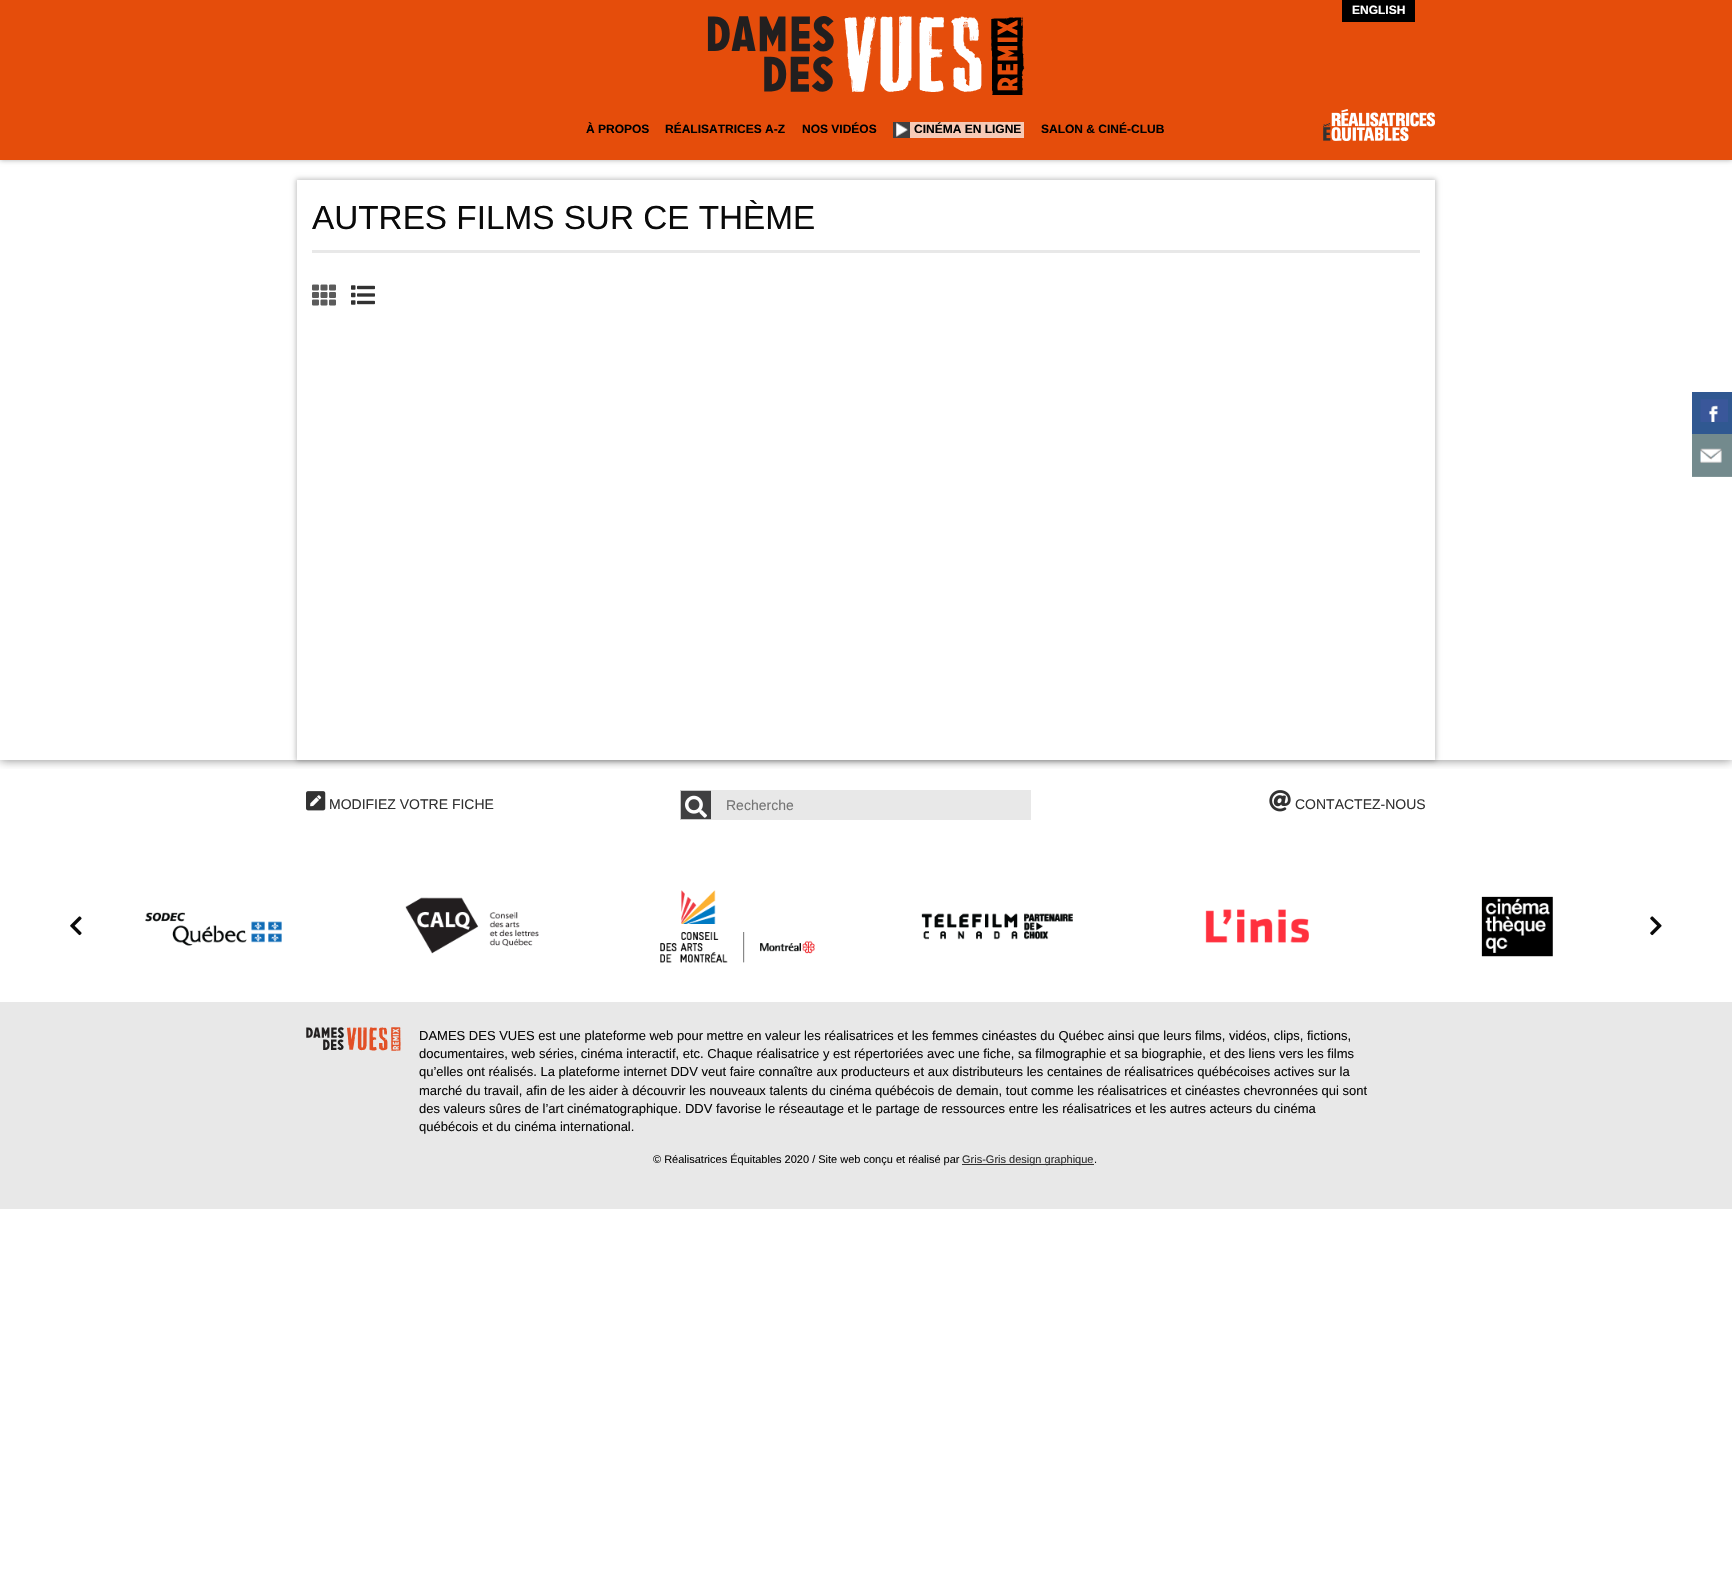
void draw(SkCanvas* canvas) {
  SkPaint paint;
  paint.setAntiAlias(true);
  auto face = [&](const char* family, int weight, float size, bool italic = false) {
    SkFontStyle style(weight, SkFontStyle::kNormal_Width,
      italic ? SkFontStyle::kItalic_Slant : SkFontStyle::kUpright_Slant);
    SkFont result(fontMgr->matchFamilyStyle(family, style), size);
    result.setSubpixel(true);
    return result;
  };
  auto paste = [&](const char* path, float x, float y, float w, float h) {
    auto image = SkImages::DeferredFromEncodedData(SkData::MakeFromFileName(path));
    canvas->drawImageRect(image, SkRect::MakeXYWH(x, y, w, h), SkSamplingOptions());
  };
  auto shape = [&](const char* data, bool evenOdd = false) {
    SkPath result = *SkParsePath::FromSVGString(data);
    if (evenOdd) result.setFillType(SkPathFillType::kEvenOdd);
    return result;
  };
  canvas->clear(0xffffffff);
  canvas->save();
  canvas->clipRect(SkRect::MakeXYWH(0, 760, 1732, 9));
  paint.setColor(0x800a0a0a);
  paint.setMaskFilter(SkMaskFilter::MakeBlur(kNormal_SkBlurStyle, 5));
  canvas->drawRect(SkRect::MakeXYWH(0, 0, 1732, 760), paint);
  paint.setMaskFilter(nullptr);
  canvas->restore();
  paint.setColor(0x52000000);
  paint.setMaskFilter(SkMaskFilter::MakeBlur(kNormal_SkBlurStyle, 2.5f));
  canvas->drawRect(SkRect::MakeXYWH(0, 0, 1732, 160), paint);
  paint.setMaskFilter(nullptr);
  paint.setColor(0xffe54d0b);
  canvas->drawRect(SkRect::MakeXYWH(0, 0, 1732, 160), paint);
  paint.setColor(0xff000000);
  canvas->drawRect(SkRect::MakeXYWH(1342, 0, 73, 22), paint);
  paste("img/1.png", 707, 16, 318, 79);
  paint.setColor(0xfff7cab6);
  canvas->drawRect(SkRect::MakeXYWH(910, 122, 114, 16), paint);
  paste("img/2.png", 893, 122, 17, 16);
  paste("img/3.png", 1323, 109, 112, 32);
  canvas->save();
  canvas->clipPath(shape("M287 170H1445V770H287ZM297 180H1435V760H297Z", true), true);
  paint.setColor(0x40000000);
  paint.setMaskFilter(SkMaskFilter::MakeBlur(kNormal_SkBlurStyle, 2.5f));
  canvas->drawRect(SkRect::MakeXYWH(296, 179, 1140, 582), paint);
  paint.setMaskFilter(nullptr);
  canvas->restore();
  paint.setColor(0xffe8e8e8);
  canvas->drawRect(SkRect::MakeXYWH(312, 250, 1108, 3), paint);
  paste("img/4.png", 312, 284, 24, 22);
  paste("img/5.png", 351, 285, 24, 20);
  paste("img/6.png", 306, 791, 20, 20);
  {
    const struct { float x, y, w, h; SkColor color; } items[] = {
      {681, 791, 30, 28, 0xff404041},
      {680, 790, 31, 1, 0xffcacaca},
      {680, 819, 31, 1, 0xffcacaca},
      {680, 790, 1, 30, 0xffcacaca},
    };
    for (auto [x, y, w, h, color] : items) {
      paint.setColor(color);
      canvas->drawRect(SkRect::MakeXYWH(x, y, w, h), paint);
    }
  }
  paste("img/7.png", 685, 795, 22, 23);
  paint.setColor(0xffe8e8e8);
  canvas->drawRect(SkRect::MakeXYWH(711, 790, 320, 30), paint);
  paste("img/8.png", 1269, 790, 22, 22);
  paste("img/9.png", 145, 912, 137, 34);
  paste("img/10.png", 405, 897, 134, 57);
  paste("img/11.png", 660, 890, 155, 73);
  paste("img/12.png", 921, 913, 152, 27);
  paste("img/13.png", 1205, 909, 104, 34);
  paste("img/14.png", 1481, 896, 72, 61);
  paste("img/15.png", 70, 916, 12, 20);
  paste("img/16.png", 1650, 916, 12, 20);
  canvas->drawRect(SkRect::MakeXYWH(0, 1002, 1732, 207), paint);
  paste("img/17.png", 306, 1027, 95, 24);
  paint.setColor(0xff323232);
  canvas->drawRect(SkRect::MakeXYWH(962, 1164, 132, 1), paint);
  paint.setColor(0xff305891);
  canvas->drawRect(SkRect::MakeXYWH(1692, 392, 40, 42), paint);
  paste("img/18.png", 1700, 399, 28, 23);
  paint.setColor(0xff738a8d);
  canvas->drawRect(SkRect::MakeXYWH(1692, 434, 40, 42), paint);
  paint.setColor(0xff819698);
  canvas->drawRect(SkRect::MakeXYWH(1692, 476, 40, 1), paint);
  paste("img/19.png", 1700, 448, 22, 15);
  auto f0 = face("Liberation Sans", 700, 12);
  paint.setColor(0xffffffff);
  canvas->drawString("ENGLISH", 1352, 14, f0, paint);
  paint.setColor(0xff000000);
  {
    const struct { const char* s; float x, y; } items[] = {
      {"À PROPOS", 586, 133},
      {"RÉALISATRICES A-Z", 665, 133},
      {"NOS VIDÉOS", 802, 133},
      {"CINÉMA EN LIGNE", 914, 133},
      {"SALON & CINÉ-CLUB", 1041, 133},
    };
    for (auto [s, x, y] : items) {
      canvas->drawString(s, x, y, f0, paint);
    }
  }
  auto f1 = face("Liberation Sans", 400, 33.3f);
  paint.setColor(0xff0a0a0a);
  canvas->drawString("AUTRES FILMS SUR CE THÈME", 312, 229, f1, paint);
  auto f2 = face("Liberation Sans", 400, 14);
  paint.setColor(0xff323232);
  canvas->drawString("MODIFIEZ VOTRE FICHE", 329, 809, f2, paint);
  paint.setColor(0xff757575);
  canvas->drawString("Recherche", 726, 810, f2, paint);
  paint.setColor(0xff323232);
  canvas->drawString("CONTACTEZ-NOUS", 1295, 809, f2, paint);
  auto f3 = face("Liberation Sans", 400, 13);
  paint.setColor(0xff0a0a0a);
  {
    const struct { const char* s; float x, y; } items[] = {
      {"DAMES DES VUES est une plateforme web pour mettre en valeur les réalisatrices et les femmes cinéastes du Québec ainsi que leurs films, vidéos, clips, fictions,", 419, 1040},
      {"documentaires, web séries, cinéma interactif, etc. Chaque réalisatrice y est répertoriées avec une fiche, sa filmographie et sa biographie, et des liens vers les films", 419, 1058},
      {"qu’elles ont réalisés. La plateforme internet DDV veut faire connaître aux producteurs et aux distributeurs les centaines de réalisatrices québécoises actives sur la", 419, 1076},
      {"marché du travail, afin de les aider à découvrir les nouveaux talents du cinéma québécois de demain, tout comme les réalisatrices et cinéastes chevronnées qui sont", 419, 1095},
      {"des valeurs sûres de l’art cinématographique. DDV favorise le réseautage et le partage de ressources entre les réalisatrices et les autres acteurs du cinéma", 419, 1113},
      {"québécois et du cinéma international.", 419, 1131},
    };
    for (auto [s, x, y] : items) {
      canvas->drawString(s, x, y, f3, paint);
    }
  }
  auto f4 = face("Liberation Sans", 400, 11);
  canvas->drawString("© Réalisatrices Équitables 2020 / Site web conçu et réalisé par", 653, 1163, f4, paint);
  paint.setColor(0xff323232);
  canvas->drawString("Gris-Gris design graphique", 962, 1163, f4, paint);
  paint.setColor(0xff0a0a0a);
  canvas->drawString(".", 1094, 1163, f4, paint);
}
